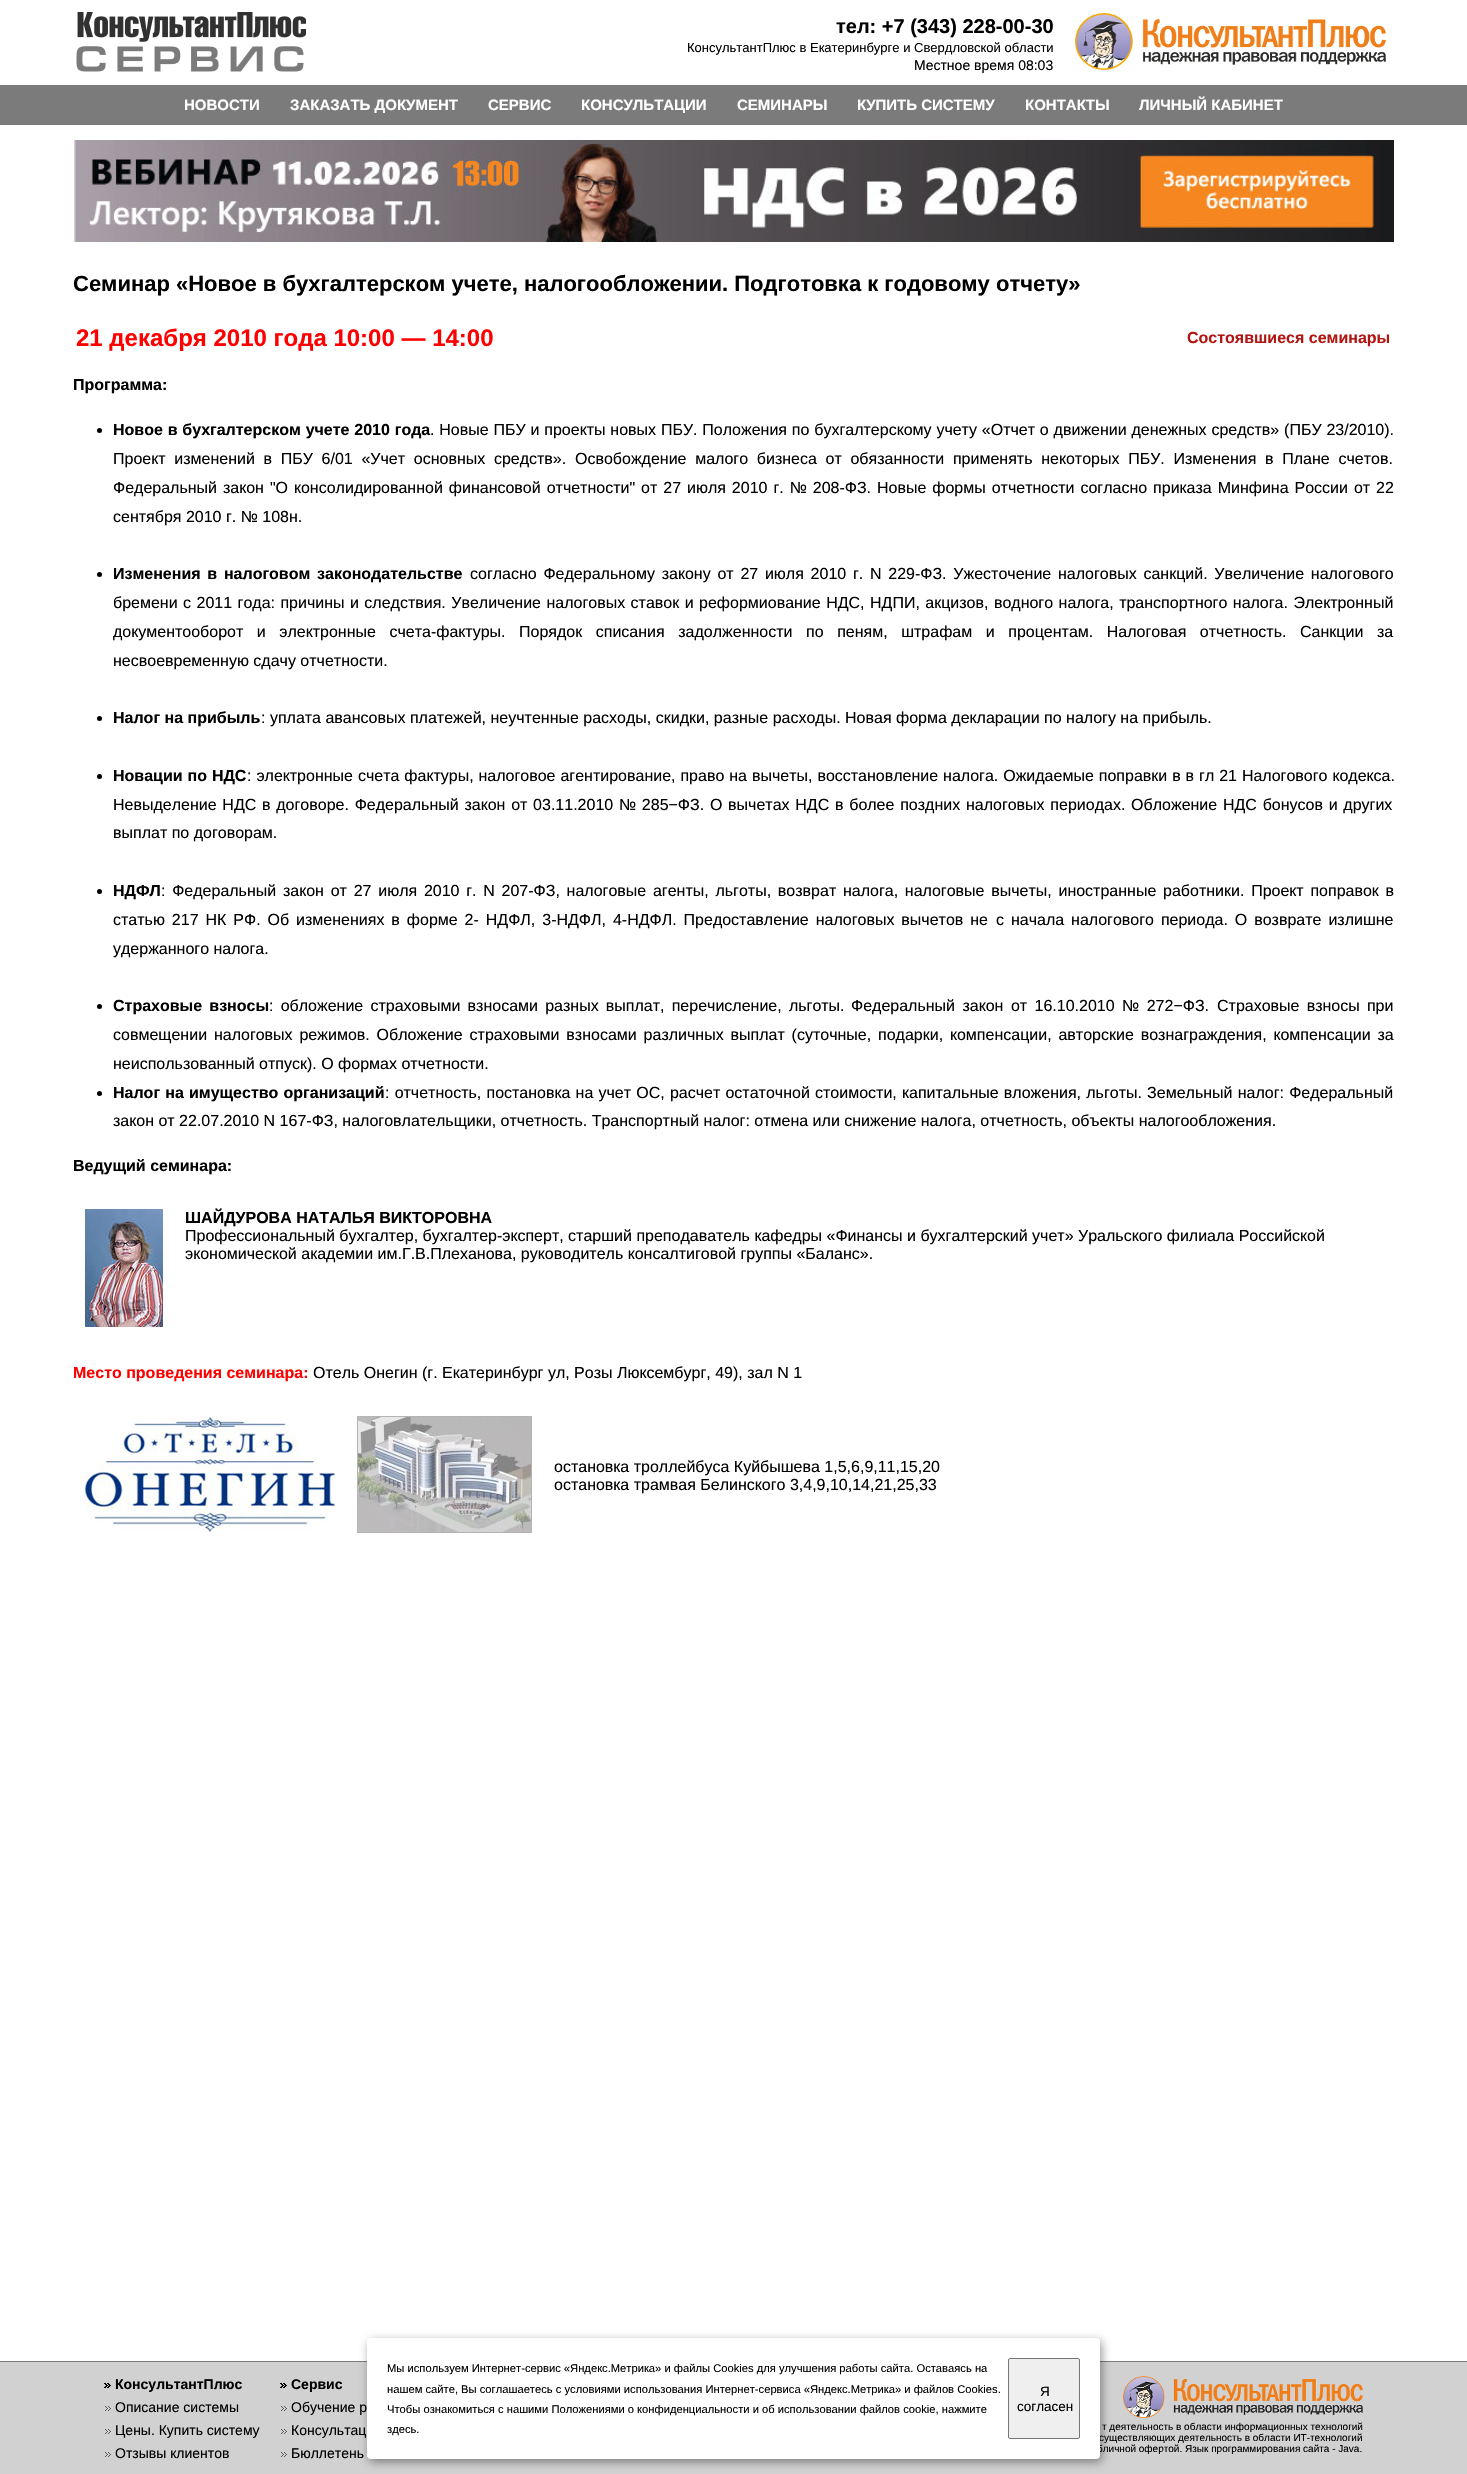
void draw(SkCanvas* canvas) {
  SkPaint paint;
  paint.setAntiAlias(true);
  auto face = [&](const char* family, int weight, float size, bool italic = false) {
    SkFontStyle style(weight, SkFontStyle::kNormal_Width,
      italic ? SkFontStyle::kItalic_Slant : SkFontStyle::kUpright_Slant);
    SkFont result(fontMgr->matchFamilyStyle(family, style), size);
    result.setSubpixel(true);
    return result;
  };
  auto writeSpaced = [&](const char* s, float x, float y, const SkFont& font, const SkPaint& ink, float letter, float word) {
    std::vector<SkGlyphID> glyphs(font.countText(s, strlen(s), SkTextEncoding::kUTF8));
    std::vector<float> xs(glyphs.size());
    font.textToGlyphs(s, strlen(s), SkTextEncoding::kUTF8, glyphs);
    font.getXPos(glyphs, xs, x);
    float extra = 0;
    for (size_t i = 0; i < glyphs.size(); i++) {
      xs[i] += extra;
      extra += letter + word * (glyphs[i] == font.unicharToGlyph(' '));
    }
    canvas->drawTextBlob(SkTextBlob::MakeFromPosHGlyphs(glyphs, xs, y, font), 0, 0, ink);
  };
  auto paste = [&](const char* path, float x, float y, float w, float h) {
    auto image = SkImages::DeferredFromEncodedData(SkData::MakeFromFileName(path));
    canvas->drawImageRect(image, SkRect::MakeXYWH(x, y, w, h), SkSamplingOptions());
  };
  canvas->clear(0xffffffff);
  paste("img/1.png", 76, 12, 230, 60);
  paste("img/2.png", 1075, 13, 311, 57);
  paint.setColor(0xff7b7b7b);
  canvas->drawRect(SkRect::MakeXYWH(0, 85, 1467, 40), paint);
  paste("img/3.png", 74, 140, 1320, 102);
  paint.setColor(0xff000000);
  canvas->drawCircle(99.5f, 430.5f, 2.5f, paint);
  canvas->drawCircle(99.5f, 574.5f, 2.5f, paint);
  canvas->drawCircle(99.5f, 718.5f, 2.5f, paint);
  canvas->drawCircle(99.5f, 776.5f, 2.5f, paint);
  canvas->drawCircle(99.5f, 891.5f, 2.5f, paint);
  canvas->drawCircle(99.5f, 1006.5f, 2.5f, paint);
  canvas->drawCircle(99.5f, 1093.5f, 2.5f, paint);
  paste("img/4.png", 85, 1209, 78, 118);
  paste("img/5.png", 85, 1417, 250, 115);
  paint.setStroke(true);
  paint.setStrokeWidth(1);
  paint.setColor(0xffb4b4b4);
  canvas->drawRect(SkRect::MakeXYWH(357.5f, 1416.5f, 174, 116), paint);
  paste("img/6.png", 358, 1417, 173, 115);
  paint.setStroke(false);
  paint.setColor(0xffd1d1d1);
  canvas->drawRect(SkRect::MakeXYWH(0, 2362, 1467, 112), paint);
  paint.setColor(0xff7b7b7b);
  canvas->drawRect(SkRect::MakeXYWH(0, 2361, 1467, 1), paint);
  paint.setColor(0x66000000);
  paint.setMaskFilter(SkMaskFilter::MakeBlur(kNormal_SkBlurStyle, 5));
  canvas->drawRoundRect(SkRect::MakeXYWH(369, 2341, 733, 121), 4, 4, paint);
  paint.setMaskFilter(nullptr);
  paste("img/7.png", 104, 2383, 7, 5);
  paste("img/7.png", 280, 2383, 7, 5);
  paste("img/8.png", 105, 2406, 6, 5);
  paste("img/8.png", 281, 2406, 6, 5);
  paste("img/8.png", 105, 2429, 6, 5);
  paste("img/8.png", 281, 2429, 6, 5);
  paste("img/8.png", 105, 2452, 6, 5);
  paste("img/8.png", 281, 2452, 6, 5);
  paste("img/9.png", 1123, 2376, 240, 42);
  auto f0 = face("Liberation Sans", 700, 20);
  paint.setColor(0xff000000);
  canvas->drawString("тел: +7 (343) 228-00-30", 836, 33, f0, paint);
  auto f1 = face("Liberation Sans", 400, 13);
  canvas->drawString("КонсультантПлюс в Екатеринбурге и Свердловской области", 687, 52, f1, paint);
  auto f2 = face("Liberation Sans", 400, 14);
  canvas->drawString("Местное время 08:03", 914, 70, f2, paint);
  auto f3 = face("Liberation Sans", 700, 15);
  paint.setColor(0xffffffff);
  {
    const struct { const char* s; float x, y; } items[] = {
      {"НОВОСТИ", 184, 110},
      {"ЗАКАЗАТЬ ДОКУМЕНТ", 290, 110},
      {"СЕРВИС", 488, 110},
      {"КОНСУЛЬТАЦИИ", 581, 110},
      {"СЕМИНАРЫ", 737, 110},
      {"КУПИТЬ СИСТЕМУ", 857, 110},
      {"КОНТАКТЫ", 1025, 110},
      {"ЛИЧНЫЙ КАБИНЕТ", 1139, 110},
    };
    for (auto [s, x, y] : items) {
      canvas->drawString(s, x, y, f3, paint);
    }
  }
  auto f4 = face("Liberation Sans", 700, 22);
  paint.setColor(0xff000000);
  canvas->drawString("Семинар «Новое в бухгалтерском учете, налогообложении. Подготовка к годовому отчету»", 73, 291, f4, paint);
  auto f5 = face("Liberation Sans", 700, 24);
  paint.setColor(0xffff0000);
  canvas->drawString("21 декабря 2010 года 10:00 — 14:00", 76, 346, f5, paint);
  auto f6 = face("Liberation Sans", 700, 16);
  paint.setColor(0xffb21612);
  canvas->drawString("Состоявшиеся семинары", 1187, 343, f6, paint);
  paint.setColor(0xff000000);
  canvas->drawString("Программа:", 73, 390, f6, paint);
  writeSpaced("Новое в бухгалтерском учете 2010 года", 113, 435, f6, paint, 0, 0.4f);
  auto f7 = face("Liberation Sans", 400, 16);
  writeSpaced(". Новые ПБУ и проекты новых ПБУ. Положения по бухгалтерскому учету «Отчет о движении денежных средств» (ПБУ 23/2010).", 430, 435, f7, paint, 0, 0.4f);
  writeSpaced("Проект изменений в ПБУ 6/01 «Учет основных средств».", 113, 464, f7, paint, 0, 4.25f);
  writeSpaced("Освобождение малого бизнеса от обязанности применять некоторых ПБУ. Изменения в Плане счетов.", 575, 464, f7, paint, 0, 4.25f);
  writeSpaced("Федеральный закон \"О консолидированной финансовой отчетности\" от 27 июля 2010 г. № 208-ФЗ. Новые формы отчетности согласно приказа Минфина России от 22", 113, 493, f7, paint, 0, 1.5f);
  canvas->drawString("сентября 2010 г. № 108н.", 113, 522, f7, paint);
  writeSpaced("Изменения в налоговом законодательстве", 113, 579, f6, paint, 0, 2.3f);
  writeSpaced("согласно Федеральному закону от 27 июля 2010 г. N 229-ФЗ. Ужесточение налоговых санкций. Увеличение налогового", 470, 579, f7, paint, 0, 2.3f);
  writeSpaced("бремени с 2011 года: причины и следствия. Увеличение налоговых ставок и реформиование НДС, НДПИ, акцизов, водного налога, транспортного налога. Электронный", 113, 608, f7, paint, 0, 1);
  writeSpaced("документооборот и электронные счета-фактуры. Порядок списания задолженности по пеням, штрафам и процентам. Налоговая отчетность. Санкции за", 113, 637, f7, paint, 0, 9.1f);
  canvas->drawString("несвоевременную сдачу отчетности.", 113, 666, f7, paint);
  canvas->drawString("Налог на прибыль", 113, 723, f6, paint);
  canvas->drawString(": уплата авансовых платежей, неучтенные расходы, скидки, разные расходы. Новая форма декларации по налогу на прибыль.", 261, 723, f7, paint);
  writeSpaced("Новации по НДС", 113, 781, f6, paint, 0, 0.5f);
  writeSpaced(": электронные счета фактуры, налоговое агентирование, право на вычеты, восстановление налога. Ожидаемые поправки в в гл 21 Налогового кодекса.", 247, 781, f7, paint, 0, 0.5f);
  writeSpaced("Невыделение НДС в договоре. Федеральный закон от 03.11.2010 № 285−ФЗ. О вычетах НДС в более поздних налоговых периодах. Обложение НДС бонусов и других", 113, 810, f7, paint, 0, 1.3f);
  canvas->drawString("выплат по договорам.", 113, 838, f7, paint);
  canvas->drawString("НДФЛ", 113, 896, f6, paint);
  writeSpaced(": Федеральный закон от 27 июля 2010 г. N 207-ФЗ, налоговые агенты, льготы, возврат налога, налоговые вычеты, иностранные работники. Проект поправок в", 161, 896, f7, paint, 0, 2.3f);
  writeSpaced("статью 217 НК РФ. Об изменениях в форме 2- НДФЛ, 3-НДФЛ, 4-НДФЛ. Предоставление налоговых вычетов не", 113, 925, f7, paint, 0, 2.5f);
  writeSpaced("с начала налогового периода. О возврате излишне", 996, 925, f7, paint, 0, 2.5f);
  canvas->drawString("удержанного налога.", 113, 954, f7, paint);
  writeSpaced("Страховые взносы", 113, 1011, f6, paint, 0, 2.75f);
  writeSpaced(": обложение страховыми взносами разных выплат, перечисление, льготы.", 269, 1011, f7, paint, 0, 2.75f);
  writeSpaced("Федеральный закон от 16.10.2010 № 272−ФЗ.", 851, 1011, f7, paint, 0, 3);
  writeSpaced("Страховые взносы при", 1217, 1011, f7, paint, 0, 2.75f);
  writeSpaced("совмещении налоговых режимов. Обложение страховыми взносами различных выплат (суточные, подарки, компенсации, авторские вознаграждения, компенсации за", 113, 1040, f7, paint, 0, 2.4f);
  canvas->drawString("неиспользованный отпуск). О формах отчетности.", 113, 1069, f7, paint);
  writeSpaced("Налог на имущество организаций", 113, 1098, f6, paint, 0, 0.75f);
  writeSpaced(": отчетность, постановка на учет ОС, расчет остаточной стоимости, капитальные вложения, льготы. Земельный налог: Федеральный", 385, 1098, f7, paint, 0, 0.75f);
  canvas->drawString("закон от 22.07.2010 N 167-ФЗ, налоговлательщики, отчетность. Транспортный налог: отмена или снижение налога, отчетность, объекты налогообложения.", 113, 1126, f7, paint);
  canvas->drawString("Ведущий семинара:", 73, 1171, f6, paint);
  canvas->drawString("ШАЙДУРОВА НАТАЛЬЯ ВИКТОРОВНА", 185, 1223, f6, paint);
  canvas->drawString("Профессиональный бухгалтер, бухгалтер-эксперт, старший преподаватель кафедры «Финансы и бухгалтерский учет» Уральского филиала Российской", 185, 1241, f7, paint);
  canvas->drawString("экономической академии им.Г.В.Плеханова, руководитель консалтиговой группы «Баланс».", 185, 1259, f7, paint);
  paint.setColor(0xffff0000);
  canvas->drawString("Место проведения семинара:", 73, 1378, f6, paint);
  paint.setColor(0xff000000);
  {
    const struct { const char* s; float x, y; } items[] = {
      {"Отель Онегин (г. Екатеринбург ул, Розы Люксембург, 49), зал N 1", 313, 1378},
      {"остановка троллейбуса Куйбышева 1,5,6,9,11,15,20", 554, 1472},
      {"остановка трамвая Белинского 3,4,9,10,14,21,25,33", 554, 1490},
    };
    for (auto [s, x, y] : items) {
      canvas->drawString(s, x, y, f7, paint);
    }
  }
  auto f8 = face("Liberation Sans", 700, 14);
  canvas->drawString("КонсультантПлюс", 115, 2389, f8, paint);
  canvas->drawString("Сервис", 291, 2389, f8, paint);
  {
    const struct { const char* s; float x, y; } items[] = {
      {"Описание системы", 115, 2412},
      {"Обучение р", 291, 2412},
      {"Цены. Купить систему", 115, 2435},
      {"Консультац", 291, 2435},
      {"Отзывы клиентов", 115, 2458},
      {"Бюллетень", 291, 2458},
    };
    for (auto [s, x, y] : items) {
      canvas->drawString(s, x, y, f2, paint);
    }
  }
  auto f9 = face("Liberation Sans", 400, 10);
  {
    const struct { const char* s; float x, y; } items[] = {
      {"т деятельность в области информационных технологий", 1102, 2430},
      {"существляющих деятельность в области ИТ-технологий", 1099, 2441},
      {"бличной офертой. Язык программирования сайта - Java.", 1097, 2452},
    };
    for (auto [s, x, y] : items) {
      canvas->drawString(s, x, y, f9, paint);
    }
  }
  paint.setColor(0xffffffff);
  canvas->drawRoundRect(SkRect::MakeXYWH(367, 2338, 733, 121), 4, 4, paint);
  paint.setColor(0xffefefef);
  canvas->drawRoundRect(SkRect::MakeXYWH(1008.5f, 2358.5f, 71, 80), 1.5f, 1.5f, paint);
  paint.setStroke(true);
  paint.setColor(0xff767676);
  canvas->drawRoundRect(SkRect::MakeXYWH(1008.5f, 2358.5f, 71, 80), 1.5f, 1.5f, paint);
  auto f10 = face("Liberation Sans", 400, 13.5f);
  paint.setStroke(false);
  paint.setColor(0xff000000);
  canvas->drawString("согласен", 1017, 2411, f10, paint);
  canvas->drawString("Я", 1040, 2396, f10, paint);
  auto f11 = face("Liberation Sans", 400, 11.2f);
  {
    const struct { const char* s; float x, y; } items[] = {
      {"здесь.", 387, 2433},
      {"Чтобы ознакомиться с нашими Положениями о конфиденциальности и об использовании файлов cookie, нажмите", 387, 2413},
      {"нашем сайте, Вы соглашаетесь с условиями использования Интернет-сервиса «Яндекс.Метрика» и файлов Cookies.", 387, 2393},
      {"Мы используем Интернет-сервис «Яндекс.Метрика» и файлы Cookies для улучшения работы сайта. Оставаясь на", 387, 2372},
    };
    for (auto [s, x, y] : items) {
      canvas->drawString(s, x, y, f11, paint);
    }
  }
}
